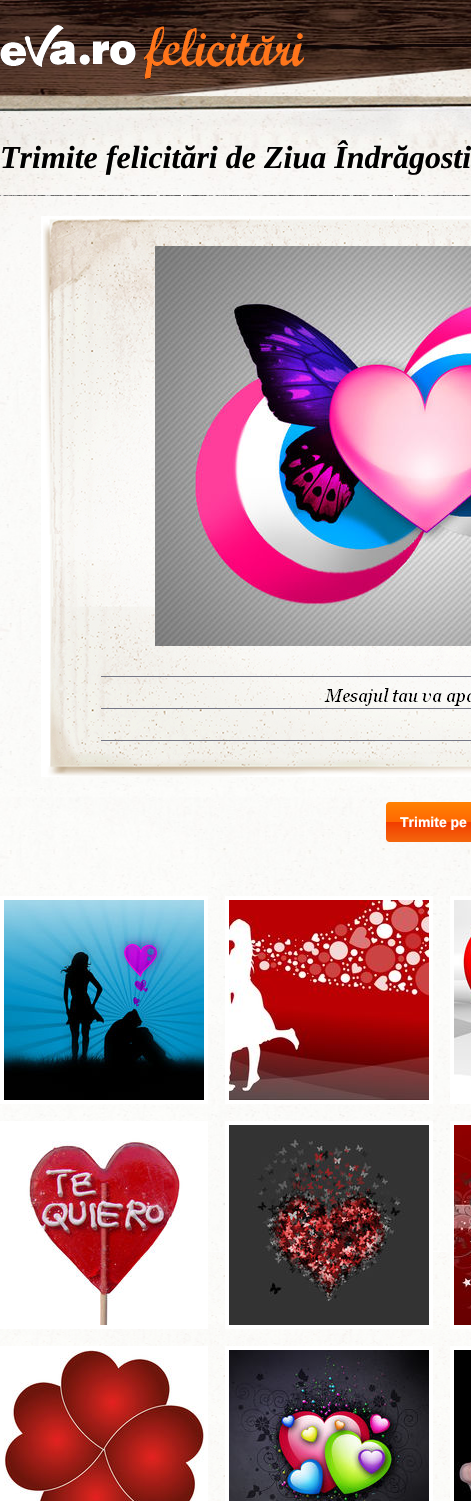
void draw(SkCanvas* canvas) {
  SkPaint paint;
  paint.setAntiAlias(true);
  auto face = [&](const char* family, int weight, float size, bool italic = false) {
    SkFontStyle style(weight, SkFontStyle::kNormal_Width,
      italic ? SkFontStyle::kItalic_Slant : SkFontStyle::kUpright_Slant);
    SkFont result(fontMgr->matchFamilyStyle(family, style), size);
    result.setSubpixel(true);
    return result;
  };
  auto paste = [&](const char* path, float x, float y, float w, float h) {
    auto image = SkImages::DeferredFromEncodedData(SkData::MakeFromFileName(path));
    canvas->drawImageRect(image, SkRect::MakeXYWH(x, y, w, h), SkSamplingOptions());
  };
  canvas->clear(0xffffffff);
  paste("img/1.png", 0, 1252, 471, 249);
  paste("img/2.png", 0, 0, 471, 1252);
  paste("img/3.png", 0, 25, 304, 54);
  paste("img/4.png", 0, 195, 471, 1);
  paste("img/5.png", 41, 216, 430, 561);
  paste("img/6.png", 155, 246, 316, 400);
  paste("img/7.png", 386, 802, 85, 40);
  paint.setStroke(true);
  paint.setStrokeWidth(4);
  paint.setColor(0xffffffff);
  canvas->drawRect(SkRect::MakeXYWH(2, 898, 204, 204), paint);
  paste("img/8.png", 4, 900, 200, 200);
  canvas->drawRect(SkRect::MakeXYWH(227, 898, 204, 204), paint);
  paste("img/9.png", 229, 900, 200, 200);
  canvas->drawRect(SkRect::MakeXYWH(452, 898, 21, 204), paint);
  paste("img/10.png", 454, 900, 17, 200);
  canvas->drawRect(SkRect::MakeXYWH(2, 1123, 204, 204), paint);
  paste("img/11.png", 4, 1125, 200, 200);
  canvas->drawRect(SkRect::MakeXYWH(227, 1123, 204, 204), paint);
  paste("img/12.png", 229, 1125, 200, 200);
  canvas->drawRect(SkRect::MakeXYWH(452, 1123, 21, 204), paint);
  paste("img/13.png", 454, 1125, 17, 200);
  canvas->drawRect(SkRect::MakeXYWH(2, 1348, 204, 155), paint);
  paste("img/14.png", 4, 1350, 200, 151);
  canvas->drawRect(SkRect::MakeXYWH(227, 1348, 204, 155), paint);
  paste("img/15.png", 229, 1350, 200, 151);
  canvas->drawRect(SkRect::MakeXYWH(452, 1348, 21, 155), paint);
  paste("img/16.png", 454, 1350, 17, 151);
  auto f0 = face("Liberation Serif", 700, 32, true);
  paint.setStroke(false);
  paint.setColor(0xff000000);
  canvas->drawString("Trimite felicitări de Ziua Îndrăgosti", 0, 168, f0, paint);
  auto f1 = face("Liberation Sans", 700, 14);
  paint.setColor(0xffffffff);
  canvas->drawString("Trimite pe", 400, 827, f1, paint);
}
